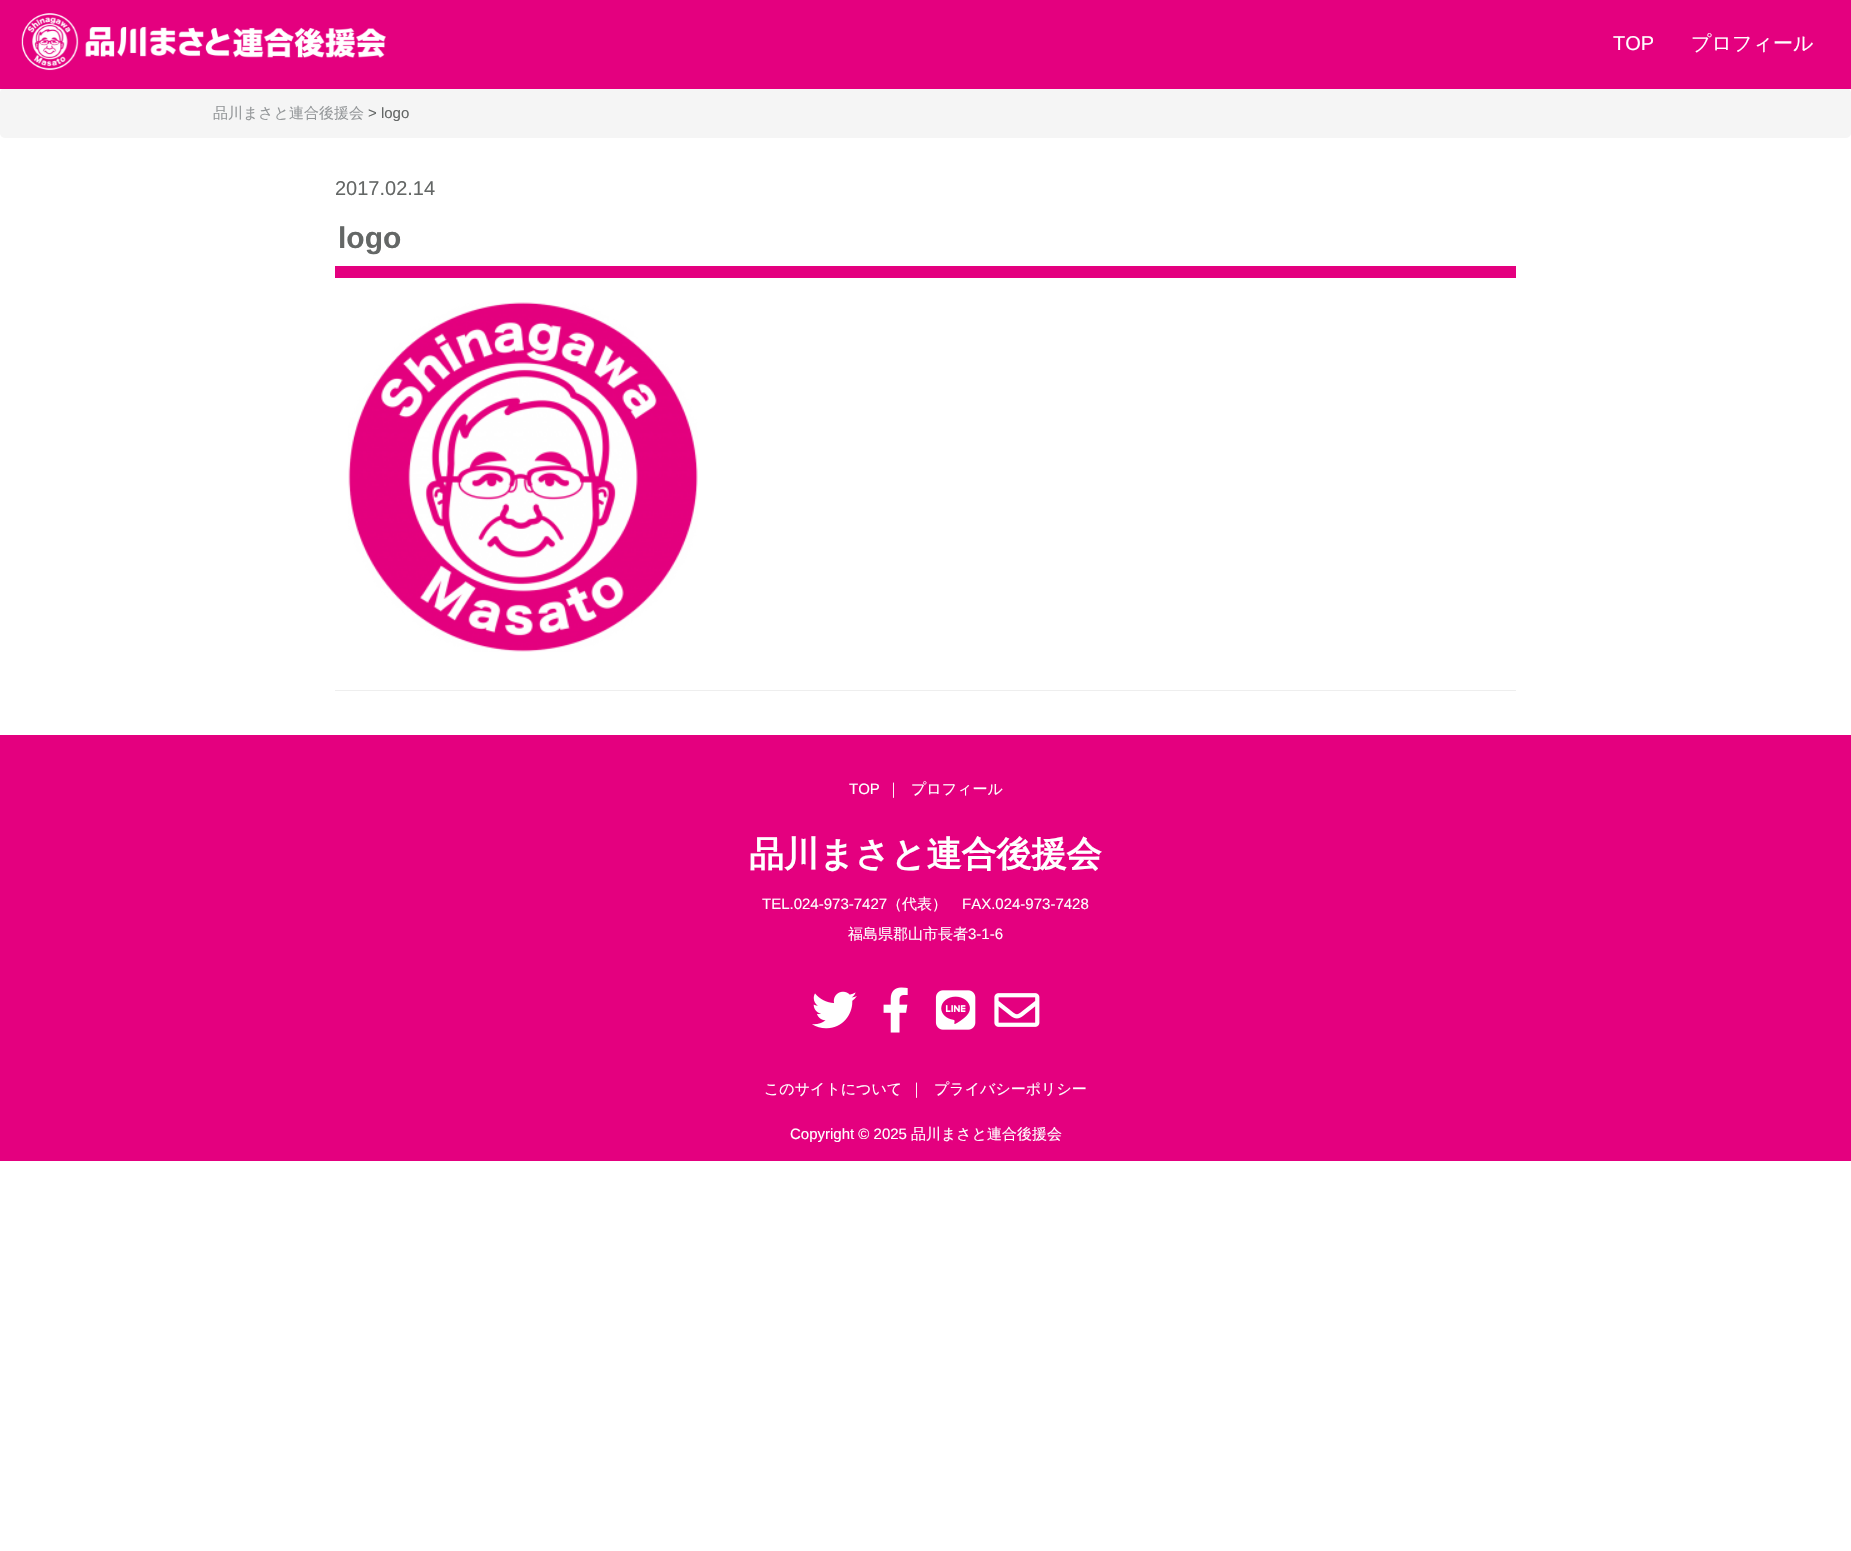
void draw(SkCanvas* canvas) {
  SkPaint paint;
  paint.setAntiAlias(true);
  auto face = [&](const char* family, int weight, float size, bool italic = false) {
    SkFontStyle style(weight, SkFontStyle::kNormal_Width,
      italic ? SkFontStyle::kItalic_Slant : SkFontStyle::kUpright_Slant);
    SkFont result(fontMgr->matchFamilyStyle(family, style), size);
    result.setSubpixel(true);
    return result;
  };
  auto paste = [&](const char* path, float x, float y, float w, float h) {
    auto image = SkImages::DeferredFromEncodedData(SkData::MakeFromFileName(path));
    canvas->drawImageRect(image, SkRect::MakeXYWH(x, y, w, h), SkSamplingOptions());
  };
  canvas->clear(0xffffffff);
  paint.setColor(0xfff5f5f5);
  canvas->drawRoundRect(SkRect::MakeXYWH(0, 88, 1851, 50), 5, 5, paint);
  paint.setColor(0xffe4007f);
  canvas->drawRect(SkRect::MakeXYWH(0, 0, 1851, 89), paint);
  paste("img/1.png", 21, 13, 365, 58);
  canvas->drawRect(SkRect::MakeXYWH(335, 266, 1181, 12), paint);
  paste("img/2.png", 348, 302, 350, 350);
  paint.setColor(0xffeeeeee);
  canvas->drawRect(SkRect::MakeXYWH(335, 690, 1181, 1), paint);
  paint.setColor(0xffe4007f);
  canvas->drawRect(SkRect::MakeXYWH(0, 735, 1851, 426), paint);
  paste("img/3.png", 812, 991, 45, 38);
  paste("img/4.png", 883, 987, 25, 46);
  paste("img/5.png", 935, 990, 41, 40);
  paste("img/6.png", 994, 993, 46, 34);
  auto f0 = face("Liberation Sans", 400, 20);
  paint.setColor(0xffffffff);
  canvas->drawString("TOP", 1613, 50, f0, paint);
  auto f1 = face("WenQuanYi Zen Hei", 500, 20);
  canvas->drawString("プロフィール", 1691, 50, f1, paint);
  auto f2 = face("WenQuanYi Zen Hei", 500, 15);
  paint.setColor(0xff949799);
  canvas->drawString("品川まさと連合後援会", 213, 118, f2, paint);
  auto f3 = face("Liberation Sans", 400, 15);
  paint.setColor(0xff646766);
  canvas->drawString("> logo", 368, 118, f3, paint);
  canvas->drawString("2017.02.14", 335, 195, f0, paint);
  auto f4 = face("Liberation Sans", 700, 30);
  canvas->drawString("logo", 338, 248, f4, paint);
  paint.setColor(0xffffffff);
  canvas->drawString("TOP", 849, 794, f3, paint);
  canvas->drawString("｜", 886, 794, f2, paint);
  canvas->drawString("プロフィール", 911, 794, f2, paint);
  auto f5 = face("WenQuanYi Zen Hei", 700, 35);
  canvas->drawString("品川まさと連合後援会", 749, 866, f5, paint);
  canvas->drawString("TEL.024-973-7427", 762, 909, f3, paint);
  canvas->drawString("（代表）", 887, 909, f2, paint);
  canvas->drawString("FAX.024-973-7428", 962, 909, f3, paint);
  canvas->drawString("福島県郡山市長者", 848, 939, f2, paint);
  canvas->drawString("3-1-6", 968, 939, f3, paint);
  {
    const struct { const char* s; float x, y; } items[] = {
      {"このサイトについて", 764, 1094},
      {"｜", 909, 1094},
      {"プライバシーポリシー", 934, 1094},
    };
    for (auto [s, x, y] : items) {
      canvas->drawString(s, x, y, f2, paint);
    }
  }
  canvas->drawString("Copyright © 2025", 790, 1139, f3, paint);
  canvas->drawString("品川まさと連合後援会", 911, 1139, f2, paint);
}
